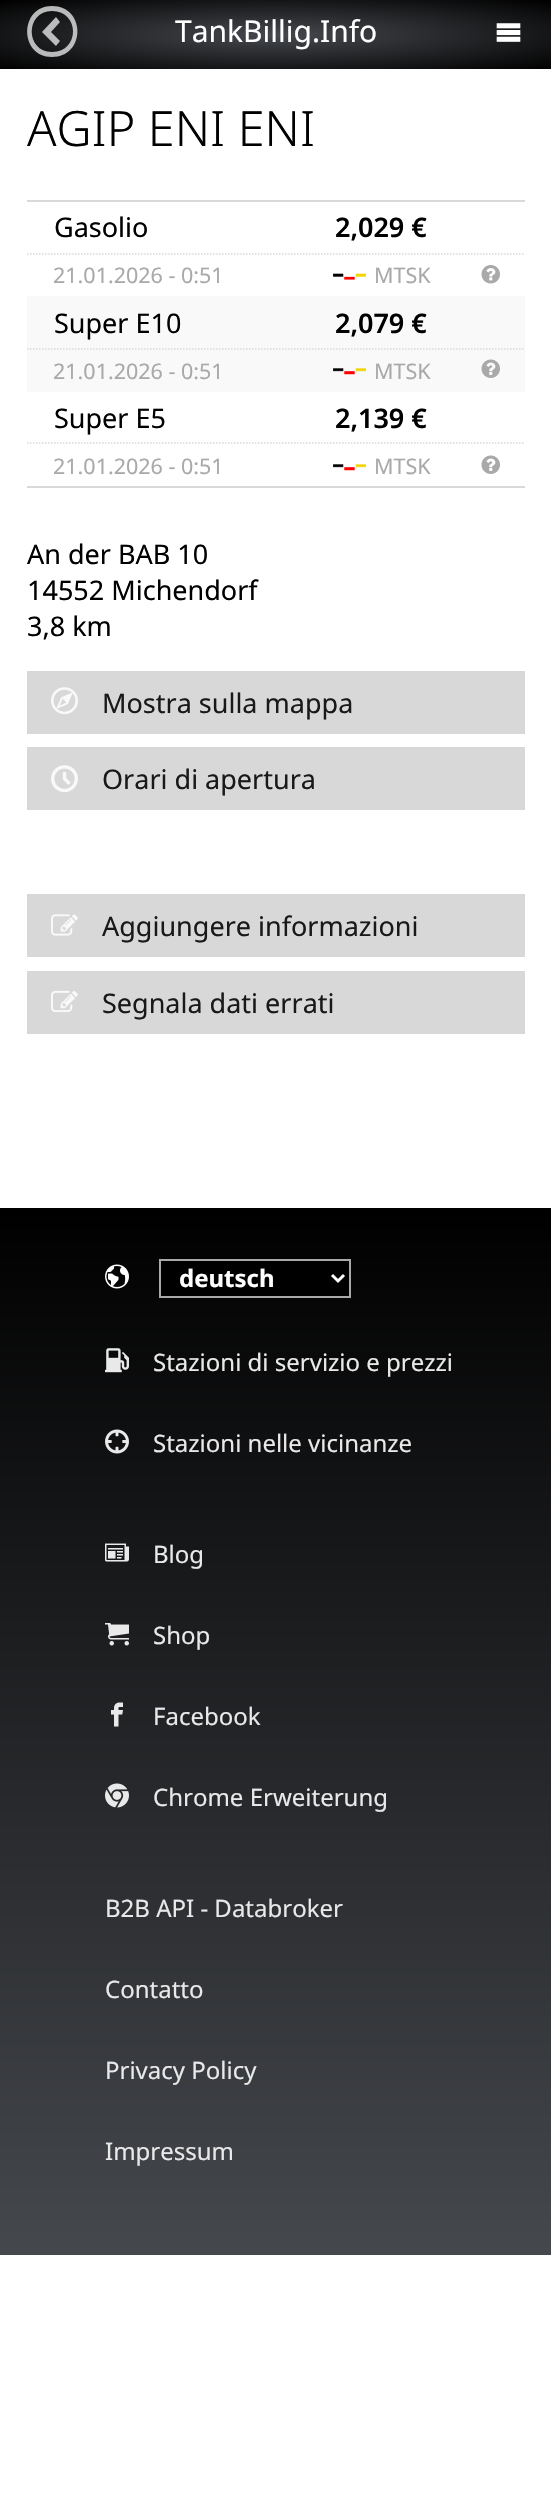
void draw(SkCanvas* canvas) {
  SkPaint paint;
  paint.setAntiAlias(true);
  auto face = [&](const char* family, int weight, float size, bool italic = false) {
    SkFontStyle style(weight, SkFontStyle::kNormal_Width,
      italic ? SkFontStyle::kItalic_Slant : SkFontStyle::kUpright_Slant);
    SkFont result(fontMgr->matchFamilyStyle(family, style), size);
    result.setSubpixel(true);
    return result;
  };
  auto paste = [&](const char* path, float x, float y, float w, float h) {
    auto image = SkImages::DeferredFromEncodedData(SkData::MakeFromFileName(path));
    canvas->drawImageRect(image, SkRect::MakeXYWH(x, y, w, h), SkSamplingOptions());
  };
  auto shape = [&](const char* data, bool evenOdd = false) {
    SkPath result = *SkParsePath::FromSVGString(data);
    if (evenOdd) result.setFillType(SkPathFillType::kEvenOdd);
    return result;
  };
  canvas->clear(0xffffffff);
  {
    const SkColor colors[] = {0xff45484d, 0xff000000};
    const float stops[] = {0, 1};
    SkMatrix m = SkMatrix::Translate(276, 35).preScale(390, 49);
    paint.setShader(SkGradientShader::MakeRadial({0, 0}, 1, colors, stops, 2, SkTileMode::kClamp, 0, &m));
    paint.setAlpha(255);
  }
  canvas->drawRect(SkRect::MakeXYWH(0, 0, 551, 69), paint);
  paint.setShader(nullptr);
  paint.setColor(0xb3ffffff);
  canvas->drawPath(shape("M52 57C86 57 86 6 52 6C19 6 19 57 52 57ZM52 11C80 11 80 52 52 52C25 52 25 11 52 11ZM60 22L56 17L42 32L56 46L60 41L51 32Z"), paint);
  paste("img/1.png", 496, 23, 25, 19);
  paint.setColor(0xffd9d9d9);
  canvas->drawRect(SkRect::MakeXYWH(27, 200, 498, 2), paint);
  canvas->drawRect(SkRect::MakeXYWH(27, 486, 498, 2), paint);
  paint.setStroke(true);
  paint.setStrokeWidth(1.5f);
  paint.setPathEffect(SkDashPathEffect::Make({{1.5f, 1.5f}}, 0));
  canvas->drawPath(shape("M27 254H306"), paint);
  paint.setPathEffect(nullptr);
  paint.setPathEffect(SkDashPathEffect::Make({{1.5f, 1.5f}}, 0));
  canvas->drawPath(shape("M306 254H456"), paint);
  paint.setPathEffect(nullptr);
  paste("img/2.png", 333, 273, 33, 7);
  paint.setPathEffect(SkDashPathEffect::Make({{1.5f, 1.5f}}, 0));
  canvas->drawPath(shape("M456 254H525"), paint);
  paint.setPathEffect(nullptr);
  paste("img/3.png", 481, 265, 19, 19);
  paint.setStroke(false);
  paint.setColor(0xfff9f9f9);
  canvas->drawRect(SkRect::MakeXYWH(27, 296, 498, 96), paint);
  paint.setStroke(true);
  paint.setColor(0xffd9d9d9);
  paint.setPathEffect(SkDashPathEffect::Make({{1.5f, 1.5f}}, 0));
  canvas->drawPath(shape("M27 349H306"), paint);
  paint.setPathEffect(nullptr);
  paint.setPathEffect(SkDashPathEffect::Make({{1.5f, 1.5f}}, 0));
  canvas->drawPath(shape("M306 349H456"), paint);
  paint.setPathEffect(nullptr);
  paste("img/4.png", 333, 368, 33, 7);
  paint.setPathEffect(SkDashPathEffect::Make({{1.5f, 1.5f}}, 0));
  canvas->drawPath(shape("M456 349H525"), paint);
  paint.setPathEffect(nullptr);
  paste("img/5.png", 481, 359, 19, 19);
  paint.setPathEffect(SkDashPathEffect::Make({{1.5f, 1.5f}}, 0));
  canvas->drawPath(shape("M27 443H306"), paint);
  paint.setPathEffect(nullptr);
  paint.setPathEffect(SkDashPathEffect::Make({{1.5f, 1.5f}}, 0));
  canvas->drawPath(shape("M306 443H456"), paint);
  paint.setPathEffect(nullptr);
  paste("img/6.png", 333, 464, 33, 7);
  paint.setPathEffect(SkDashPathEffect::Make({{1.5f, 1.5f}}, 0));
  canvas->drawPath(shape("M456 443H525"), paint);
  paint.setPathEffect(nullptr);
  paste("img/7.png", 481, 455, 19, 19);
  paint.setStroke(false);
  paint.setColor(0xffd8d8d8);
  canvas->drawRect(SkRect::MakeXYWH(27, 671, 498, 63), paint);
  paste("img/8.png", 51, 687, 27, 28);
  canvas->drawRect(SkRect::MakeXYWH(27, 747, 498, 63), paint);
  paste("img/9.png", 51, 765, 27, 28);
  canvas->drawRect(SkRect::MakeXYWH(27, 894, 498, 63), paint);
  paste("img/10.png", 51, 914, 27, 22);
  canvas->drawRect(SkRect::MakeXYWH(27, 971, 498, 63), paint);
  paste("img/11.png", 51, 990, 27, 22);
  {
    const SkColor colors[] = {0xff45484d, 0xff000000};
    const float stops[] = {0, 1};
    const SkPoint ends[] = {{276, 2255}, {276, 1208}};
    paint.setShader(SkGradientShader::MakeLinear(ends, colors, stops, 2, SkTileMode::kClamp));
    paint.setAlpha(255);
  }
  canvas->drawRect(SkRect::MakeXYWH(0, 1208, 551, 1047), paint);
  paste("img/12.png", 105, 1264, 24, 25);
  paint.setShader(nullptr);
  paint.setColor(0xff000000);
  canvas->drawRect(SkRect::MakeXYWH(160, 1260, 190, 37), paint);
  paint.setStroke(true);
  paint.setStrokeWidth(2);
  paint.setColor(0xffa9a9a9);
  canvas->drawRect(SkRect::MakeXYWH(160, 1260, 190, 37), paint);
  paint.setStrokeWidth(3);
  paint.setColor(0xffffffff);
  canvas->drawPath(shape("M332 1275L338 1281L344 1275"), paint);
  paste("img/13.png", 105, 1348, 24, 25);
  paste("img/14.png", 105, 1429, 24, 25);
  paste("img/15.png", 105, 1543, 24, 19);
  paste("img/16.png", 105, 1623, 24, 23);
  paste("img/17.png", 111, 1702, 12, 25);
  paste("img/18.png", 105, 1783, 24, 25);
  auto f0 = face("Noto Sans", 400, 30);
  paint.setStroke(false);
  canvas->drawString("TankBillig.Info", 175, 42, f0, paint);
  auto f1 = face("Noto Sans", 300, 48.5f);
  paint.setColor(0xff000000);
  canvas->drawString("AGIP ENI ENI", 27, 146, f1, paint);
  auto f2 = face("Noto Sans", 400, 27);
  canvas->drawString("Gasolio", 54, 237, f2, paint);
  auto f3 = face("Noto Sans", 600, 27);
  canvas->drawString("2,029 €", 335, 237, f3, paint);
  auto f4 = face("Noto Sans", 400, 21.5f);
  paint.setColor(0xffa9a9a9);
  canvas->drawString("21.01.2026 - 0:51", 53, 283, f4, paint);
  canvas->drawString("MTSK", 374, 283, f4, paint);
  paint.setColor(0xff000000);
  canvas->drawString("Super E10", 54, 333, f2, paint);
  canvas->drawString("2,079 €", 335, 333, f3, paint);
  paint.setColor(0xffa9a9a9);
  canvas->drawString("21.01.2026 - 0:51", 53, 379, f4, paint);
  canvas->drawString("MTSK", 374, 379, f4, paint);
  paint.setColor(0xff000000);
  canvas->drawString("Super E5", 54, 428, f2, paint);
  canvas->drawString("2,139 €", 335, 428, f3, paint);
  paint.setColor(0xffa9a9a9);
  canvas->drawString("21.01.2026 - 0:51", 53, 474, f4, paint);
  canvas->drawString("MTSK", 374, 474, f4, paint);
  paint.setColor(0xff000000);
  {
    const struct { const char* s; float x, y; } items[] = {
      {"An der BAB 10", 27, 564},
      {"14552 Michendorf", 27, 600},
      {"3,8 km", 27, 636},
    };
    for (auto [s, x, y] : items) {
      canvas->drawString(s, x, y, f2, paint);
    }
  }
  paint.setColor(0xff191919);
  {
    const struct { const char* s; float x, y; } items[] = {
      {"Mostra sulla mappa", 102, 713},
      {"Orari di apertura", 102, 789},
      {"Aggiungere informazioni", 102, 936},
      {"Segnala dati errati", 102, 1013},
    };
    for (auto [s, x, y] : items) {
      canvas->drawString(s, x, y, f2, paint);
    }
  }
  auto f5 = face("Noto Sans", 700, 24);
  paint.setColor(0xffffffff);
  canvas->drawString("deutsch", 179, 1287, f5, paint);
  auto f6 = face("Noto Sans", 400, 24);
  paint.setColor(0xffe9e9e9);
  {
    const struct { const char* s; float x, y; } items[] = {
      {"Stazioni di servizio e prezzi", 153, 1371},
      {"Stazioni nelle vicinanze", 153, 1452},
      {"Blog", 153, 1563},
      {"Shop", 153, 1644},
      {"Facebook", 153, 1725},
      {"Chrome Erweiterung", 153, 1806},
      {"B2B API - Databroker", 105, 1917},
      {"Contatto", 105, 1998},
      {"Privacy Policy", 105, 2079},
      {"Impressum", 105, 2160},
    };
    for (auto [s, x, y] : items) {
      canvas->drawString(s, x, y, f6, paint);
    }
  }
}
